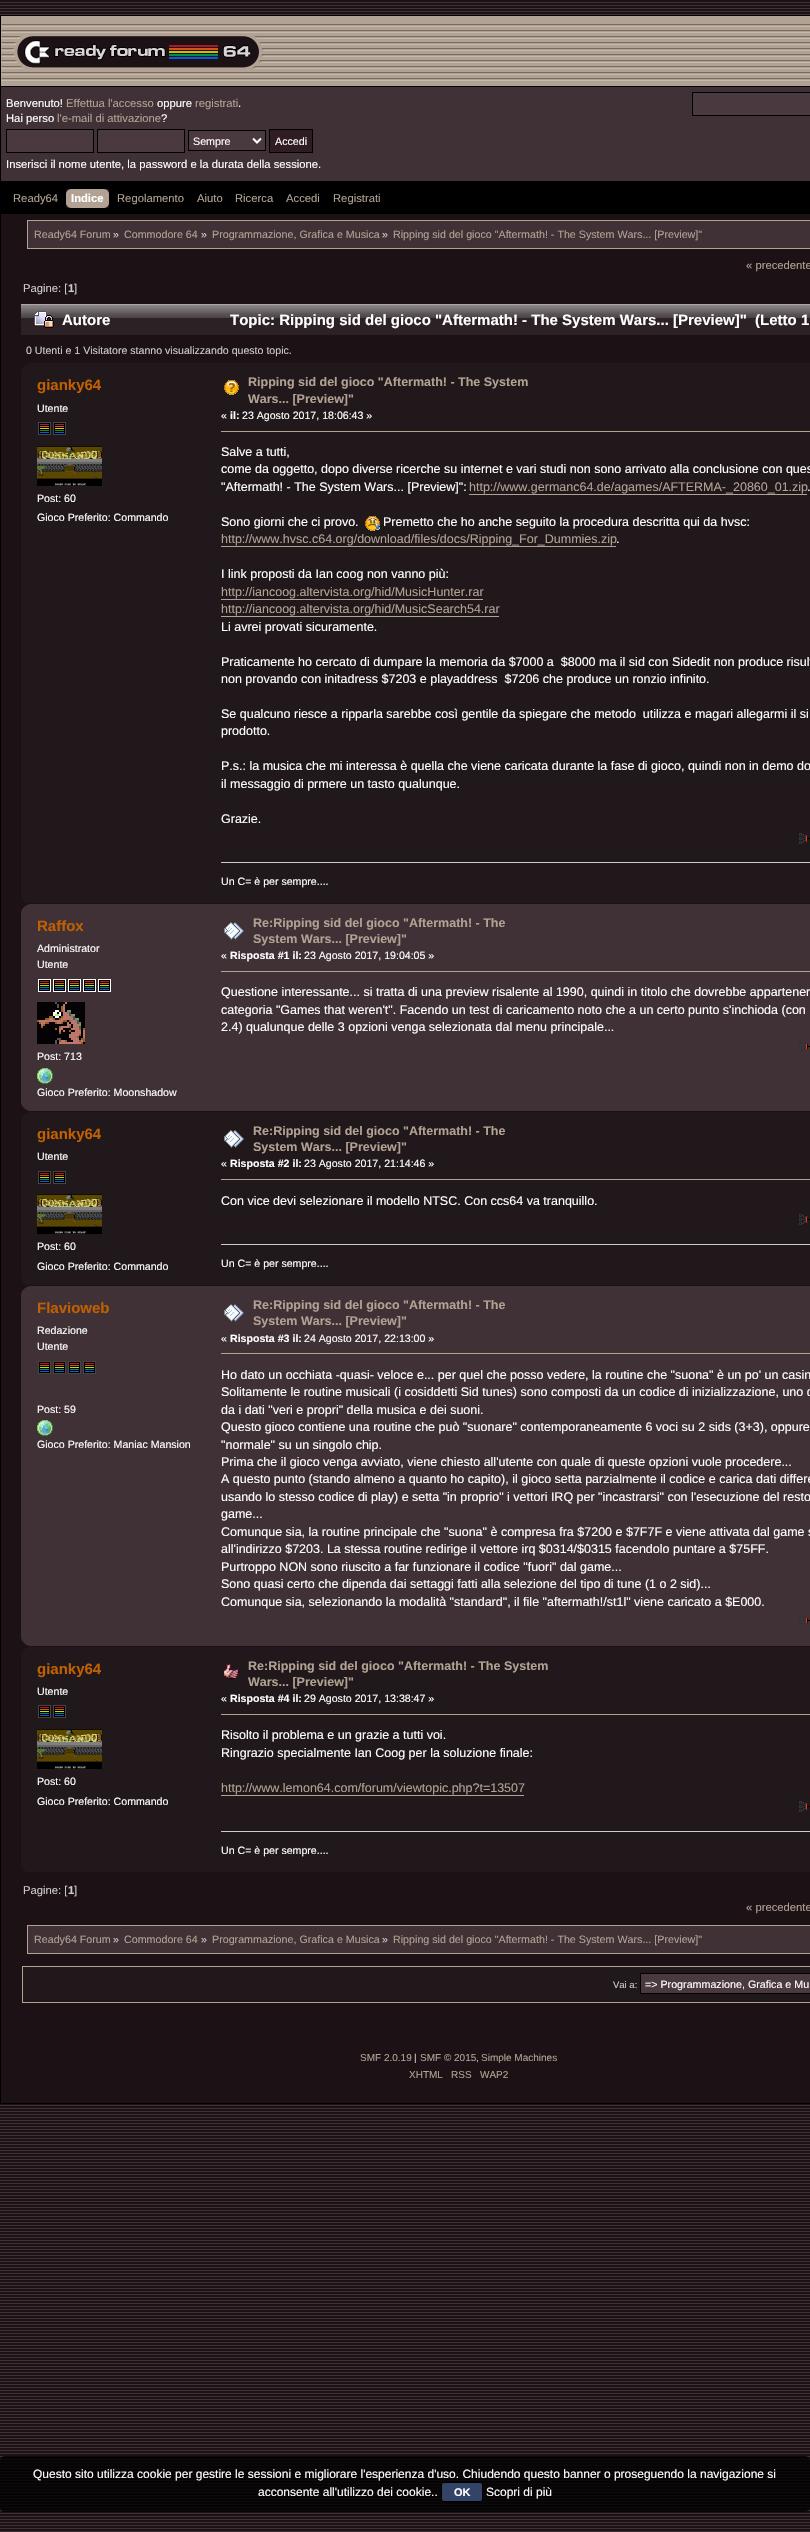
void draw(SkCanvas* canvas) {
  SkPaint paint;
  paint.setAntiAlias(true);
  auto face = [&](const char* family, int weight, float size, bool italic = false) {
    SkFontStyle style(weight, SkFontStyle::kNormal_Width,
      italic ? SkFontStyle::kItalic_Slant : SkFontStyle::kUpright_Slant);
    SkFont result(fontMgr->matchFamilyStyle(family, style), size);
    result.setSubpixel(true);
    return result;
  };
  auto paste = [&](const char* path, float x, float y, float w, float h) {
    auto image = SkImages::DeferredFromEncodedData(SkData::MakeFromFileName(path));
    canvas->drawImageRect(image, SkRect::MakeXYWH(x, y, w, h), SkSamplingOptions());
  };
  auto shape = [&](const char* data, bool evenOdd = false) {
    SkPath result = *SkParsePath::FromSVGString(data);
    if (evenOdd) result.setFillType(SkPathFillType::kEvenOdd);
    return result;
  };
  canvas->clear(0xff1c1115);
  paste("img/1.png", 0, 2, 810, 2530);
  paint.setStroke(true);
  paint.setStrokeWidth(1);
  paint.setColor(0xff000000);
  canvas->drawRect(SkRect::MakeXYWH(0.5f, 15.5f, 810, 2088), paint);
  paint.setStroke(false);
  canvas->drawRect(SkRect::MakeXYWH(1, 86, 809, 128), paint);
  paste("img/2.png", 1, 16, 809, 70);
  paint.setColor(0xff403136);
  canvas->drawRect(SkRect::MakeXYWH(1, 87, 809, 94), paint);
  paint.setColor(0xff4a393e);
  canvas->drawRect(SkRect::MakeXYWH(6.5f, 129.5f, 87, 23), paint);
  paint.setStroke(true);
  paint.setColor(0xff000000);
  canvas->drawRect(SkRect::MakeXYWH(6.5f, 129.5f, 87, 23), paint);
  paint.setStroke(false);
  paint.setColor(0xff4a393e);
  canvas->drawRect(SkRect::MakeXYWH(97.5f, 129.5f, 87, 23), paint);
  paint.setStroke(true);
  paint.setColor(0xff000000);
  canvas->drawRect(SkRect::MakeXYWH(97.5f, 129.5f, 87, 23), paint);
  paint.setStroke(false);
  paint.setColor(0xff4a393e);
  canvas->drawRect(SkRect::MakeXYWH(188.5f, 130.5f, 77, 20), paint);
  paint.setStroke(true);
  paint.setColor(0xff000000);
  canvas->drawRect(SkRect::MakeXYWH(188.5f, 130.5f, 77, 20), paint);
  paint.setStrokeWidth(2);
  paint.setColor(0xffffffff);
  canvas->drawPath(shape("M253 138.5L257 142.5L261 138.5"), paint);
  paint.setStroke(false);
  paint.setColor(0xff2f1d23);
  canvas->drawRect(SkRect::MakeXYWH(269.5f, 129.5f, 43, 23), paint);
  paint.setStroke(true);
  paint.setStrokeWidth(1);
  paint.setColor(0xff000000);
  canvas->drawRect(SkRect::MakeXYWH(269.5f, 129.5f, 43, 23), paint);
  paint.setStroke(false);
  paint.setColor(0xff4a393e);
  canvas->drawRect(SkRect::MakeXYWH(692.5f, 92.5f, 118, 23), paint);
  paint.setStroke(true);
  paint.setColor(0xff000000);
  canvas->drawRect(SkRect::MakeXYWH(692.5f, 92.5f, 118, 23), paint);
  paste("img/3.png", 71, 189, 38, 19);
  paste("img/4.png", 66, 189, 5, 19);
  paint.setStroke(false);
  paint.setColor(0xff1c1115);
  canvas->drawRect(SkRect::MakeXYWH(1, 215, 809, 1813), paint);
  paint.setColor(0xff403136);
  canvas->drawRect(SkRect::MakeXYWH(27.5f, 220.5f, 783, 28), paint);
  paint.setStroke(true);
  paint.setColor(0xffb2a293);
  canvas->drawRect(SkRect::MakeXYWH(27.5f, 220.5f, 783, 28), paint);
  paste("img/5.png", 21, 304, 789, 31);
  paste("img/6.png", 34, 311, 20, 17);
  paint.setStroke(false);
  paint.setColor(0xff20181b);
  canvas->drawRect(SkRect::MakeXYWH(21, 363, 789, 540), paint);
  paste("img/7.png", 21, 363, 7, 7);
  paste("img/8.png", 38, 422, 13, 13);
  paste("img/8.png", 53, 422, 13, 13);
  paste("img/9.png", 37, 446, 65, 40);
  paste("img/10.png", 224, 380, 15, 15);
  paint.setColor(0xffb2a293);
  canvas->drawRect(SkRect::MakeXYWH(221, 431, 589, 1), paint);
  canvas->drawRect(SkRect::MakeXYWH(469, 494, 338, 1), paint);
  paste("img/11.png", 365, 516, 15, 15);
  {
    const struct { float x, y, w, h; SkColor color; } items[] = {
      {221, 546, 395, 1, 0xffb2a293},
      {221, 599, 262, 1, 0xffb2a293},
      {221, 616, 278, 1, 0xffb2a293},
    };
    for (auto [x, y, w, h, color] : items) {
      paint.setColor(color);
      canvas->drawRect(SkRect::MakeXYWH(x, y, w, h), paint);
    }
  }
  paste("img/12.png", 799, 833, 11, 11);
  paint.setColor(0xffcccccc);
  canvas->drawRect(SkRect::MakeXYWH(221, 862, 589, 1), paint);
  paste("img/13.png", 21, 897, 5, 6);
  paint.setColor(0xff403136);
  canvas->drawRect(SkRect::MakeXYWH(21, 904, 789, 207), paint);
  paste("img/14.png", 21, 904, 9, 9);
  paste("img/15.png", 38, 979, 13, 13);
  paste("img/15.png", 53, 979, 13, 13);
  paste("img/15.png", 68, 979, 13, 13);
  paste("img/15.png", 83, 979, 13, 13);
  paste("img/15.png", 98, 979, 13, 13);
  paste("img/16.png", 37, 1002, 48, 42);
  paste("img/17.png", 37, 1068, 16, 16);
  paste("img/18.png", 224, 922, 20, 18);
  paint.setColor(0xffb2a293);
  canvas->drawRect(SkRect::MakeXYWH(221, 971, 589, 1), paint);
  paste("img/19.png", 799, 1041, 11, 11);
  paste("img/20.png", 21, 1102, 9, 9);
  paint.setColor(0xff20181b);
  canvas->drawRect(SkRect::MakeXYWH(21, 1112, 789, 173), paint);
  paste("img/7.png", 21, 1112, 7, 7);
  paste("img/8.png", 38, 1171, 13, 13);
  paste("img/8.png", 53, 1171, 13, 13);
  paste("img/9.png", 37, 1194, 65, 40);
  paste("img/21.png", 224, 1130, 20, 18);
  paint.setColor(0xffb2a293);
  canvas->drawRect(SkRect::MakeXYWH(221, 1179, 589, 1), paint);
  paste("img/12.png", 799, 1214, 11, 11);
  paint.setColor(0xffcccccc);
  canvas->drawRect(SkRect::MakeXYWH(221, 1244, 589, 1), paint);
  paste("img/13.png", 21, 1279, 5, 6);
  paint.setColor(0xff403136);
  canvas->drawRect(SkRect::MakeXYWH(21, 1286, 789, 360), paint);
  paste("img/14.png", 21, 1286, 9, 9);
  paste("img/8.png", 38, 1361, 13, 13);
  paste("img/8.png", 53, 1361, 13, 13);
  paste("img/8.png", 68, 1361, 13, 13);
  paste("img/8.png", 83, 1361, 13, 13);
  paste("img/17.png", 37, 1420, 16, 16);
  paste("img/18.png", 224, 1304, 20, 18);
  paint.setColor(0xffb2a293);
  canvas->drawRect(SkRect::MakeXYWH(221, 1353, 589, 1), paint);
  paste("img/19.png", 799, 1615, 11, 11);
  paste("img/20.png", 21, 1637, 9, 9);
  paint.setColor(0xff20181b);
  canvas->drawRect(SkRect::MakeXYWH(21, 1647, 789, 225), paint);
  paste("img/7.png", 21, 1647, 7, 7);
  paste("img/8.png", 38, 1705, 13, 13);
  paste("img/8.png", 53, 1705, 13, 13);
  paste("img/9.png", 37, 1729, 65, 40);
  paste("img/22.png", 224, 1664, 15, 15);
  paint.setColor(0xffb2a293);
  canvas->drawRect(SkRect::MakeXYWH(221, 1714, 589, 1), paint);
  canvas->drawRect(SkRect::MakeXYWH(221, 1795, 303, 1), paint);
  paste("img/12.png", 799, 1801, 11, 11);
  paint.setColor(0xffcccccc);
  canvas->drawRect(SkRect::MakeXYWH(221, 1831, 589, 1), paint);
  paste("img/13.png", 21, 1866, 5, 6);
  paint.setColor(0xff403136);
  canvas->drawRect(SkRect::MakeXYWH(27.5f, 1925.5f, 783, 28), paint);
  paint.setStroke(true);
  paint.setColor(0xffb2a293);
  canvas->drawRect(SkRect::MakeXYWH(27.5f, 1925.5f, 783, 28), paint);
  paint.setStroke(false);
  paint.setColor(0xff20181b);
  canvas->drawRect(SkRect::MakeXYWH(22.5f, 1966.5f, 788, 36), paint);
  paint.setStroke(true);
  paint.setColor(0xffb2a293);
  canvas->drawRect(SkRect::MakeXYWH(22.5f, 1966.5f, 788, 36), paint);
  paint.setStroke(false);
  paint.setColor(0xff4a393e);
  canvas->drawRect(SkRect::MakeXYWH(640.5f, 1973.5f, 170, 20), paint);
  paint.setStroke(true);
  paint.setColor(0xff000000);
  canvas->drawRect(SkRect::MakeXYWH(640.5f, 1973.5f, 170, 20), paint);
  paint.setStroke(false);
  paint.setColor(0xff1c1115);
  canvas->drawRect(SkRect::MakeXYWH(1, 2030, 809, 73), paint);
  paint.setColor(0xcc000000);
  canvas->drawRoundRect(SkRect::MakeXYWH(0, 2456, 810, 56), 5, 5, paint);
  paint.setColor(0xff334466);
  canvas->drawRoundRect(SkRect::MakeXYWH(441.5f, 2482.5f, 41, 19), 2.5f, 2.5f, paint);
  paint.setStroke(true);
  paint.setColor(0xff000000);
  canvas->drawRoundRect(SkRect::MakeXYWH(441.5f, 2482.5f, 41, 19), 2.5f, 2.5f, paint);
  auto f0 = face("Liberation Sans", 400, 11.25f);
  paint.setStroke(false);
  paint.setColor(0xffffffff);
  canvas->drawString("Benvenuto!", 6, 107, f0, paint);
  paint.setColor(0xffb2a293);
  canvas->drawString("Effettua l'accesso", 66, 107, f0, paint);
  paint.setColor(0xffffffff);
  canvas->drawString("oppure", 157, 107, f0, paint);
  paint.setColor(0xffb2a293);
  canvas->drawString("registrati", 195, 107, f0, paint);
  paint.setColor(0xffffffff);
  canvas->drawString(".", 238, 107, f0, paint);
  canvas->drawString("Hai perso", 6, 122, f0, paint);
  paint.setColor(0xffb2a293);
  canvas->drawString("l'e-mail di attivazione", 57, 122, f0, paint);
  paint.setColor(0xffffffff);
  canvas->drawString("?", 161, 122, f0, paint);
  auto f1 = face("Liberation Sans", 400, 10.7f);
  canvas->drawString("Sempre", 193, 145, f1, paint);
  canvas->drawString("Accedi", 275, 145, f1, paint);
  canvas->drawString("Inserisci il nome utente, la password e la durata della sessione.", 6, 168, f0, paint);
  paint.setColor(0xffb2a293);
  canvas->drawString("Ready64", 13, 202, f0, paint);
  auto f2 = face("Liberation Sans", 700, 11.25f);
  paint.setColor(0xffffffff);
  canvas->drawString("Indice", 71, 202, f2, paint);
  paint.setColor(0xffb2a293);
  {
    const struct { const char* s; float x, y; } items[] = {
      {"Regolamento", 117, 202},
      {"Aiuto", 197, 202},
      {"Ricerca", 235, 202},
      {"Accedi", 286, 202},
      {"Registrati", 333, 202},
    };
    for (auto [s, x, y] : items) {
      canvas->drawString(s, x, y, f0, paint);
    }
  }
  canvas->drawString("Ready64 Forum", 34, 238, f1, paint);
  paint.setColor(0xffcccccc);
  canvas->drawString("»", 113, 238, f1, paint);
  paint.setColor(0xffb2a293);
  canvas->drawString("Commodore 64", 124, 238, f1, paint);
  paint.setColor(0xffcccccc);
  canvas->drawString("»", 201, 238, f1, paint);
  paint.setColor(0xffb2a293);
  canvas->drawString("Programmazione, Grafica e Musica", 212, 238, f1, paint);
  paint.setColor(0xffcccccc);
  canvas->drawString("»", 382, 238, f1, paint);
  paint.setColor(0xffb2a293);
  canvas->drawString("Ripping sid del gioco \"Aftermath! - The System Wars... [Preview]\"", 393, 238, f1, paint);
  canvas->drawString("« precedente", 746, 269, f0, paint);
  paint.setColor(0xffcccccc);
  canvas->drawString("Pagine: [", 23, 292, f0, paint);
  canvas->drawString("1", 68, 292, f2, paint);
  canvas->drawString("]", 74, 292, f0, paint);
  auto f3 = face("Liberation Sans", 700, 15);
  paint.setColor(0xffffffff);
  canvas->drawString("Autore", 62, 325, f3, paint);
  canvas->drawString("Topic: Ripping sid del gioco \"Aftermath! - The System Wars... [Preview]\"  (Letto 1", 230, 325, f3, paint);
  auto f4 = face("Liberation Sans", 400, 10.6f);
  paint.setColor(0xffcccccc);
  canvas->drawString("0 Utenti e 1 Visitatore stanno visualizzando questo topic.", 26, 354, f4, paint);
  paint.setColor(0xffc06002);
  canvas->drawString("gianky64", 37, 390, f3, paint);
  paint.setColor(0xffffffff);
  {
    const struct { const char* s; float x, y; } items[] = {
      {"Utente", 37, 412},
      {"Post: 60", 37, 502},
      {"Gioco Preferito: Commando", 37, 521},
    };
    for (auto [s, x, y] : items) {
      canvas->drawString(s, x, y, f4, paint);
    }
  }
  auto f5 = face("Liberation Sans", 700, 12.5f);
  paint.setColor(0xffb2a293);
  canvas->drawString("Ripping sid del gioco \"Aftermath! - The System", 248, 386, f5, paint);
  canvas->drawString("Wars... [Preview]\"", 248, 403, f5, paint);
  paint.setColor(0xffffffff);
  canvas->drawString("«", 221, 419, f4, paint);
  auto f6 = face("Liberation Sans", 700, 10.6f);
  canvas->drawString("il:", 230, 419, f6, paint);
  canvas->drawString("23 Agosto 2017, 18:06:43 »", 242, 419, f4, paint);
  auto f7 = face("Liberation Sans", 400, 12.5f);
  {
    const struct { const char* s; float x, y; } items[] = {
      {"Salve a tutti,", 221, 456},
      {"come da oggetto, dopo diverse ricerche su internet e vari studi non sono arrivato alla conclusione con ques", 221, 473},
      {"\"Aftermath! - The System Wars... [Preview]\":", 221, 491},
    };
    for (auto [s, x, y] : items) {
      canvas->drawString(s, x, y, f7, paint);
    }
  }
  paint.setColor(0xffb2a293);
  canvas->drawString("http://www.germanc64.de/agames/AFTERMA-_20860_01.zip", 469, 491, f7, paint);
  paint.setColor(0xffffffff);
  {
    const struct { const char* s; float x, y; } items[] = {
      {".", 807, 491},
      {"Sono giorni che ci provo.", 221, 526},
      {"Premetto che ho anche seguito la procedura descritta qui da hvsc:", 383, 526},
    };
    for (auto [s, x, y] : items) {
      canvas->drawString(s, x, y, f7, paint);
    }
  }
  paint.setColor(0xffb2a293);
  canvas->drawString("http://www.hvsc.c64.org/download/files/docs/Ripping_For_Dummies.zip", 221, 543, f7, paint);
  paint.setColor(0xffffffff);
  canvas->drawString(".", 616, 543, f7, paint);
  canvas->drawString("I link proposti da Ian coog non vanno più:", 221, 578, f7, paint);
  paint.setColor(0xffb2a293);
  canvas->drawString("http://iancoog.altervista.org/hid/MusicHunter.rar", 221, 596, f7, paint);
  canvas->drawString("http://iancoog.altervista.org/hid/MusicSearch54.rar", 221, 613, f7, paint);
  paint.setColor(0xffffffff);
  {
    const struct { const char* s; float x, y; } items[] = {
      {"Li avrei provati sicuramente.", 221, 631},
      {"Praticamente ho cercato di dumpare la memoria da $7000 a  $8000 ma il sid con Sidedit non produce risult", 221, 666},
      {"non provando con initadress $7203 e playaddress  $7206 che produce un ronzio infinito.", 221, 683},
      {"Se qualcuno riesce a ripparla sarebbe così gentile da spiegare che metodo  utilizza e magari allegarmi il si", 221, 718},
      {"prodotto.", 221, 735},
      {"P.s.: la musica che mi interessa è quella che viene caricata durante la fase di gioco, quindi non in demo do", 221, 770},
      {"il messaggio di prmere un tasto qualunque.", 221, 788},
      {"Grazie.", 221, 823},
    };
    for (auto [s, x, y] : items) {
      canvas->drawString(s, x, y, f7, paint);
    }
  }
  canvas->drawString("Un C= è per sempre....", 221, 885, f4, paint);
  paint.setColor(0xffc06002);
  canvas->drawString("Raffox", 37, 931, f3, paint);
  paint.setColor(0xffffffff);
  {
    const struct { const char* s; float x, y; } items[] = {
      {"Administrator", 37, 952},
      {"Utente", 37, 968},
      {"Post: 713", 37, 1060},
      {"Gioco Preferito: Moonshadow", 37, 1096},
    };
    for (auto [s, x, y] : items) {
      canvas->drawString(s, x, y, f4, paint);
    }
  }
  paint.setColor(0xffb2a293);
  canvas->drawString("Re:Ripping sid del gioco \"Aftermath! - The", 253, 927, f5, paint);
  canvas->drawString("System Wars... [Preview]\"", 253, 943, f5, paint);
  paint.setColor(0xffffffff);
  canvas->drawString("«", 221, 959, f4, paint);
  canvas->drawString("Risposta #1 il:", 230, 959, f6, paint);
  canvas->drawString("23 Agosto 2017, 19:04:05 »", 304, 959, f4, paint);
  {
    const struct { const char* s; float x, y; } items[] = {
      {"Questione interessante... si tratta di una preview risalente al 1990, quindi in titolo che dovrebbe appartener", 221, 996},
      {"categoria \"Games that weren't\". Facendo un test di caricamento noto che a un certo punto s'inchioda (con", 221, 1014},
      {"2.4) qualunque delle 3 opzioni venga selezionata dal menu principale...", 221, 1031},
    };
    for (auto [s, x, y] : items) {
      canvas->drawString(s, x, y, f7, paint);
    }
  }
  paint.setColor(0xffc06002);
  canvas->drawString("gianky64", 37, 1139, f3, paint);
  paint.setColor(0xffffffff);
  {
    const struct { const char* s; float x, y; } items[] = {
      {"Utente", 37, 1160},
      {"Post: 60", 37, 1250},
      {"Gioco Preferito: Commando", 37, 1270},
    };
    for (auto [s, x, y] : items) {
      canvas->drawString(s, x, y, f4, paint);
    }
  }
  paint.setColor(0xffb2a293);
  canvas->drawString("Re:Ripping sid del gioco \"Aftermath! - The", 253, 1135, f5, paint);
  canvas->drawString("System Wars... [Preview]\"", 253, 1151, f5, paint);
  paint.setColor(0xffffffff);
  canvas->drawString("«", 221, 1167, f4, paint);
  canvas->drawString("Risposta #2 il:", 230, 1167, f6, paint);
  canvas->drawString("23 Agosto 2017, 21:14:46 »", 304, 1167, f4, paint);
  canvas->drawString("Con vice devi selezionare il modello NTSC. Con ccs64 va tranquillo.", 221, 1205, f7, paint);
  canvas->drawString("Un C= è per sempre....", 221, 1267, f4, paint);
  paint.setColor(0xffc06002);
  canvas->drawString("Flavioweb", 37, 1313, f3, paint);
  paint.setColor(0xffffffff);
  {
    const struct { const char* s; float x, y; } items[] = {
      {"Redazione", 37, 1334},
      {"Utente", 37, 1350},
      {"Post: 59", 37, 1413},
      {"Gioco Preferito: Maniac Mansion", 37, 1448},
    };
    for (auto [s, x, y] : items) {
      canvas->drawString(s, x, y, f4, paint);
    }
  }
  paint.setColor(0xffb2a293);
  canvas->drawString("Re:Ripping sid del gioco \"Aftermath! - The", 253, 1309, f5, paint);
  canvas->drawString("System Wars... [Preview]\"", 253, 1325, f5, paint);
  paint.setColor(0xffffffff);
  canvas->drawString("«", 221, 1342, f4, paint);
  canvas->drawString("Risposta #3 il:", 230, 1342, f6, paint);
  canvas->drawString("24 Agosto 2017, 22:13:00 »", 304, 1342, f4, paint);
  {
    const struct { const char* s; float x, y; } items[] = {
      {"Ho dato un occhiata -quasi- veloce e... per quel che posso vedere, la routine che \"suona\" è un po' un casin", 221, 1379},
      {"Solitamente le routine musicali (i cosiddetti Sid tunes) sono composti da un codice di inizializzazione, uno d", 221, 1396},
      {"da i dati \"veri e propri\" della musica e dei suoni.", 221, 1414},
      {"Questo gioco contiene una routine che può \"suonare\" contemporaneamente 6 voci su 2 sids (3+3), oppure", 221, 1431},
      {"\"normale\" su un singolo chip.", 221, 1449},
      {"Prima che il gioco venga avviato, viene chiesto all'utente con quale di queste opzioni vuole procedere...", 221, 1466},
      {"A questo punto (stando almeno a quanto ho capito), il gioco setta parzialmente il codice e carica dati differe", 221, 1483},
      {"usando lo stesso codice di play) e setta \"in proprio\" i vettori IRQ per \"incastrarsi\" con l'esecuzione del resto", 221, 1501},
      {"game...", 221, 1518},
      {"Comunque sia, la routine principale che \"suona\" è compresa fra $7200 e $7F7F e viene attivata dal game s", 221, 1536},
      {"all'indirizzo $7203. La stessa routine redirige il vettore irq $0314/$0315 facendolo puntare a $75FF.", 221, 1553},
      {"Purtroppo NON sono riuscito a far funzionare il codice \"fuori\" dal game...", 221, 1571},
      {"Sono quasi certo che dipenda dai settaggi fatti alla selezione del tipo di tune (1 o 2 sid)...", 221, 1588},
      {"Comunque sia, selezionando la modalità \"standard\", il file \"aftermath!/st1l\" viene caricato a $E000.", 221, 1606},
    };
    for (auto [s, x, y] : items) {
      canvas->drawString(s, x, y, f7, paint);
    }
  }
  paint.setColor(0xffc06002);
  canvas->drawString("gianky64", 37, 1674, f3, paint);
  paint.setColor(0xffffffff);
  {
    const struct { const char* s; float x, y; } items[] = {
      {"Utente", 37, 1695},
      {"Post: 60", 37, 1785},
      {"Gioco Preferito: Commando", 37, 1805},
    };
    for (auto [s, x, y] : items) {
      canvas->drawString(s, x, y, f4, paint);
    }
  }
  paint.setColor(0xffb2a293);
  canvas->drawString("Re:Ripping sid del gioco \"Aftermath! - The System", 248, 1670, f5, paint);
  canvas->drawString("Wars... [Preview]\"", 248, 1686, f5, paint);
  paint.setColor(0xffffffff);
  canvas->drawString("«", 221, 1702, f4, paint);
  canvas->drawString("Risposta #4 il:", 230, 1702, f6, paint);
  canvas->drawString("29 Agosto 2017, 13:38:47 »", 304, 1702, f4, paint);
  canvas->drawString("Risolto il problema e un grazie a tutti voi.", 221, 1739, f7, paint);
  canvas->drawString("Ringrazio specialmente Ian Coog per la soluzione finale:", 221, 1757, f7, paint);
  paint.setColor(0xffb2a293);
  canvas->drawString("http://www.lemon64.com/forum/viewtopic.php?t=13507", 221, 1792, f7, paint);
  paint.setColor(0xffffffff);
  canvas->drawString("Un C= è per sempre....", 221, 1854, f4, paint);
  paint.setColor(0xffcccccc);
  canvas->drawString("Pagine: [", 23, 1894, f0, paint);
  canvas->drawString("1", 68, 1894, f2, paint);
  canvas->drawString("]", 74, 1894, f0, paint);
  paint.setColor(0xffb2a293);
  canvas->drawString("« precedente", 746, 1911, f0, paint);
  canvas->drawString("Ready64 Forum", 34, 1943, f1, paint);
  paint.setColor(0xffcccccc);
  canvas->drawString("»", 113, 1943, f1, paint);
  paint.setColor(0xffb2a293);
  canvas->drawString("Commodore 64", 124, 1943, f1, paint);
  paint.setColor(0xffcccccc);
  canvas->drawString("»", 201, 1943, f1, paint);
  paint.setColor(0xffb2a293);
  canvas->drawString("Programmazione, Grafica e Musica", 212, 1943, f1, paint);
  paint.setColor(0xffcccccc);
  canvas->drawString("»", 382, 1943, f1, paint);
  paint.setColor(0xffb2a293);
  canvas->drawString("Ripping sid del gioco \"Aftermath! - The System Wars... [Preview]\"", 393, 1943, f1, paint);
  auto f8 = face("Liberation Sans", 400, 9.5f);
  paint.setColor(0xffcccccc);
  canvas->drawString("Vai a:", 613, 1988, f8, paint);
  paint.setColor(0xffffffff);
  canvas->drawString("=> Programmazione, Grafica e Mu", 645, 1988, f1, paint);
  auto f9 = face("Liberation Sans", 400, 10);
  paint.setColor(0xffb2a293);
  canvas->drawString("SMF 2.0.19", 360, 2061, f9, paint);
  paint.setColor(0xffcccccc);
  canvas->drawString("|", 414, 2061, f9, paint);
  paint.setColor(0xffb2a293);
  canvas->drawString("SMF © 2015", 420, 2061, f9, paint);
  paint.setColor(0xffcccccc);
  canvas->drawString(",", 476, 2061, f9, paint);
  paint.setColor(0xffb2a293);
  {
    const struct { const char* s; float x, y; } items[] = {
      {"Simple Machines", 481, 2061},
      {"XHTML", 409, 2078},
      {"RSS", 451, 2078},
      {"WAP2", 480, 2078},
    };
    for (auto [s, x, y] : items) {
      canvas->drawString(s, x, y, f9, paint);
    }
  }
  auto f10 = face("Liberation Sans", 400, 12);
  paint.setColor(0xffffffff);
  canvas->drawString("Questo sito utilizza cookie per gestire le sessioni e migliorare l'esperienza d'uso. Chiudendo questo banner o proseguendo la navigazione si", 33, 2478, f10, paint);
  canvas->drawString("acconsente all'utilizzo dei cookie..", 258, 2496, f10, paint);
  auto f11 = face("Liberation Sans", 700, 11);
  canvas->drawString("OK", 454, 2496, f11, paint);
  canvas->drawString("Scopri di più", 486, 2496, f10, paint);
}
